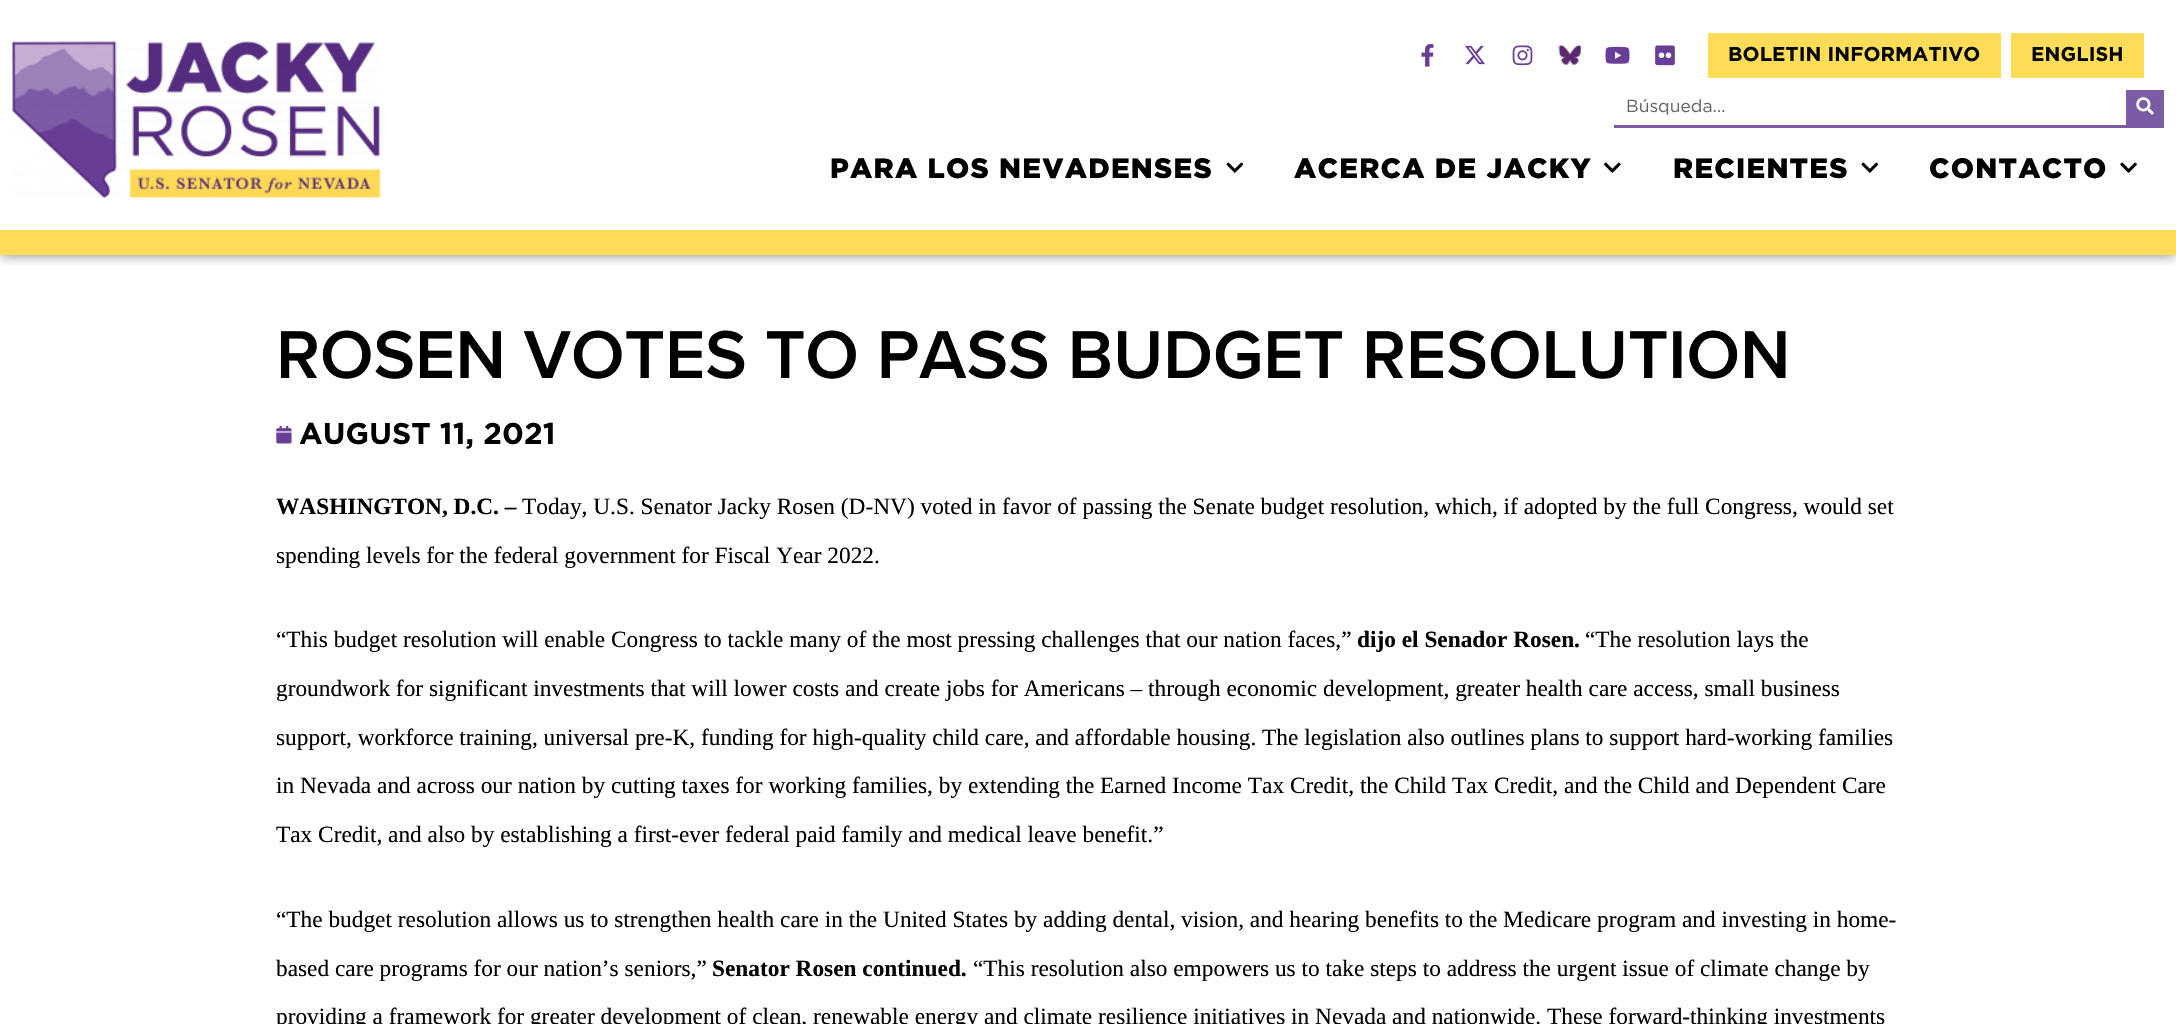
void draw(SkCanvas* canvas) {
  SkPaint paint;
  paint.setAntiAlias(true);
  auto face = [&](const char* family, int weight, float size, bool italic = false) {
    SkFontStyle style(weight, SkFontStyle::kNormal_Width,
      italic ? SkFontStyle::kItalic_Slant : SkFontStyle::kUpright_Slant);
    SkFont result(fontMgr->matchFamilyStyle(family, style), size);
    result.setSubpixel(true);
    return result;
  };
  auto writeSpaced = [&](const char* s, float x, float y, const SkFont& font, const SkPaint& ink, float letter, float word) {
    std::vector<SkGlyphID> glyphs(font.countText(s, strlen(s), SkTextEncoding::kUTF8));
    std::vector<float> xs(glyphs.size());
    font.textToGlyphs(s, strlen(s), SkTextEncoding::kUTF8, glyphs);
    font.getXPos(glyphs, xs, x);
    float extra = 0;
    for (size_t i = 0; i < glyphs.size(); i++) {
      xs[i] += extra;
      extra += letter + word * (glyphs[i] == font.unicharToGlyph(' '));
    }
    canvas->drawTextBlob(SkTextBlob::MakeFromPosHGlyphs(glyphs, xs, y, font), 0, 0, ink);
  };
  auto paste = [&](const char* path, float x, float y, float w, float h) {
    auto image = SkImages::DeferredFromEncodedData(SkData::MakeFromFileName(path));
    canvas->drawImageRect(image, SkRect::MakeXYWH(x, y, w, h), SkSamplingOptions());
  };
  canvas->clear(0xffffffff);
  canvas->save();
  canvas->clipRect(SkRect::MakeXYWH(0, 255, 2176, 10));
  paint.setColor(0x80000000);
  paint.setMaskFilter(SkMaskFilter::MakeBlur(kNormal_SkBlurStyle, 6));
  canvas->drawRect(SkRect::MakeXYWH(0, 0, 2176, 255), paint);
  paint.setMaskFilter(nullptr);
  canvas->restore();
  paint.setColor(0xfffddc57);
  canvas->drawRect(SkRect::MakeXYWH(0, 230, 2176, 25), paint);
  paste("img/1.png", 12, 41, 369, 157);
  paste("img/2.png", 1421, 44, 13, 23);
  paste("img/3.png", 1465, 45, 20, 20);
  paste("img/4.png", 1512, 45, 21, 21);
  paste("img/5.png", 1558, 44, 23, 21);
  paste("img/6.png", 1605, 46, 25, 18);
  paste("img/7.png", 1655, 45, 20, 21);
  {
    const struct { float x, y, w, h; SkColor color; } items[] = {
      {1708, 33, 293, 45, 0xfffddc57},
      {2011, 33, 133, 45, 0xfffddc57},
      {1614, 125, 550, 3, 0xff7b5ba3},
      {2126, 90, 38, 35, 0xff7b5ba3},
    };
    for (auto [x, y, w, h, color] : items) {
      paint.setColor(color);
      canvas->drawRect(SkRect::MakeXYWH(x, y, w, h), paint);
    }
  }
  paste("img/8.png", 2136, 97, 18, 18);
  paste("img/9.png", 1226, 162, 18, 11);
  paste("img/10.png", 1604, 162, 17, 11);
  paste("img/9.png", 1861, 162, 18, 11);
  paste("img/11.png", 2120, 162, 17, 11);
  paste("img/12.png", 276, 425, 16, 19);
  auto f0 = face("Gotham", 700, 20);
  paint.setColor(0xff000000);
  writeSpaced("BOLETIN INFORMATIVO", 1728, 61, f0, paint, 0.1f, 0);
  writeSpaced("ENGLISH", 2031, 61, f0, paint, 0.1f, 0);
  auto f1 = face("Gotham", 400, 17.5f);
  paint.setColor(0xff666666);
  canvas->drawString("Búsqueda...", 1626, 112, f1, paint);
  auto f2 = face("Gotham", 900, 28);
  paint.setColor(0xff000000);
  {
    const struct { const char* s; float x, y; } items[] = {
      {"PARA LOS NEVADENSES", 830, 178},
      {"ACERCA DE JACKY", 1294, 178},
      {"RECIENTES", 1673, 178},
      {"CONTACTO", 1929, 178},
    };
    for (auto [s, x, y] : items) {
      writeSpaced(s, x, y, f2, paint, 1.25f, 0);
    }
  }
  auto f3 = face("Proxima Nova", 600, 70);
  canvas->drawString("ROSEN VOTES TO PASS BUDGET RESOLUTION", 276, 378, f3, paint);
  auto f4 = face("Gotham", 700, 30);
  writeSpaced("AUGUST 11, 2021", 299, 444, f4, paint, 0.1f, 0);
  auto f5 = face("Liberation Serif", 700, 23.33f);
  canvas->drawString("WASHINGTON, D.C. –", 276, 514, f5, paint);
  auto f6 = face("Liberation Serif", 400, 23.33f);
  {
    const struct { const char* s; float x, y; } items[] = {
      {"Today, U.S. Senator Jacky Rosen (D-NV) voted in favor of passing the Senate budget resolution, which, if adopted by the full Congress, would set", 522, 514},
      {"spending levels for the federal government for Fiscal Year 2022.", 276, 563},
      {"“This budget resolution will enable Congress to tackle many of the most pressing challenges that our nation faces,”", 276, 647},
    };
    for (auto [s, x, y] : items) {
      canvas->drawString(s, x, y, f6, paint);
    }
  }
  canvas->drawString("dijo el Senador Rosen.", 1357, 647, f5, paint);
  {
    const struct { const char* s; float x, y; } items[] = {
      {"“The resolution lays the", 1585, 647},
      {"groundwork for significant investments that will lower costs and create jobs for Americans – through economic development, greater health care access, small business", 276, 696},
      {"support, workforce training, universal pre-K, funding for high-quality child care, and affordable housing. The legislation also outlines plans to support hard-working families", 276, 745},
      {"in Nevada and across our nation by cutting taxes for working families, by extending the Earned Income Tax Credit, the Child Tax Credit, and the Child and Dependent Care", 276, 793},
      {"Tax Credit, and also by establishing a first-ever federal paid family and medical leave benefit.”", 276, 842},
      {"“The budget resolution allows us to strengthen health care in the United States by adding dental, vision, and hearing benefits to the Medicare program and investing in home-", 276, 927},
      {"based care programs for our nation’s seniors,”", 276, 976},
    };
    for (auto [s, x, y] : items) {
      canvas->drawString(s, x, y, f6, paint);
    }
  }
  canvas->drawString("Senator Rosen continued.", 712, 976, f5, paint);
  canvas->drawString("“This resolution also empowers us to take steps to address the urgent issue of climate change by", 973, 976, f6, paint);
  canvas->drawString("providing a framework for greater development of clean, renewable energy and climate resilience initiatives in Nevada and nationwide. These forward-thinking investments", 276, 1024, f6, paint);
}
